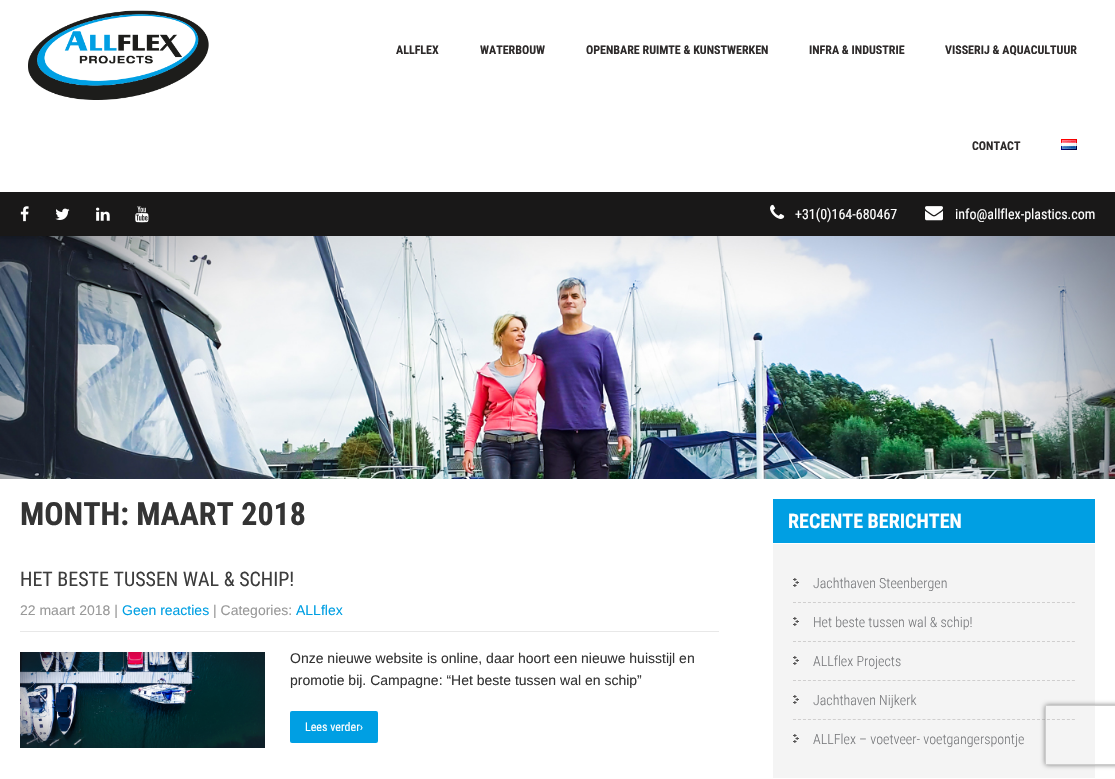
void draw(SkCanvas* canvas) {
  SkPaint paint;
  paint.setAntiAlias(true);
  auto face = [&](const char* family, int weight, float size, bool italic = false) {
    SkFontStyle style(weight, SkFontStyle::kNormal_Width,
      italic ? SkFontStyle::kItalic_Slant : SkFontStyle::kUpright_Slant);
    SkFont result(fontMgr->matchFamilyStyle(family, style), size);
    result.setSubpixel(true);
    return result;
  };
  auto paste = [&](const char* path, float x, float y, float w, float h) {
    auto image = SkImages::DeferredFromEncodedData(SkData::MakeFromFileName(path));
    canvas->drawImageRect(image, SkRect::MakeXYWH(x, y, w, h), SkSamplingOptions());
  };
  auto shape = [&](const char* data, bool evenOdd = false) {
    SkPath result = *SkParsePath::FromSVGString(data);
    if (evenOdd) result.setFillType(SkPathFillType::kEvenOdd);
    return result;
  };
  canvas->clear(0xffffffff);
  paste("img/1.png", 28, 10, 181, 90);
  paste("img/2.png", 1061, 139, 16, 11);
  paint.setColor(0xff191818);
  canvas->drawRect(SkRect::MakeXYWH(0, 192, 1115, 44), paint);
  paste("img/3.png", 20, 206, 9, 16);
  paste("img/4.png", 55, 208, 15, 12);
  paste("img/5.png", 96, 207, 14, 14);
  paste("img/6.png", 135, 206, 14, 17);
  paste("img/7.png", 770, 204, 15, 15);
  paste("img/8.png", 925, 206, 18, 15);
  paste("img/9.png", 0, 236, 1115, 243);
  paint.setColor(0xffe8e8e8);
  canvas->drawRect(SkRect::MakeXYWH(20, 631, 699, 1), paint);
  paste("img/10.png", 20, 652, 245, 96);
  paint.setColor(0xff009fe3);
  canvas->drawRoundRect(SkRect::MakeXYWH(290, 711, 88, 32), 2, 2, paint);
  canvas->drawRect(SkRect::MakeXYWH(773, 499, 322, 44), paint);
  paint.setColor(0xfff4f4f4);
  canvas->drawRect(SkRect::MakeXYWH(773, 544, 322, 234), paint);
  paste("img/11.png", 793, 578, 6, 9);
  paint.setStroke(true);
  paint.setStrokeWidth(1);
  paint.setColor(0xffd0cfcf);
  paint.setPathEffect(SkDashPathEffect::Make({{3, 1.98f}}, 0));
  canvas->drawPath(shape("M793 602.5H1075"), paint);
  paint.setPathEffect(nullptr);
  paste("img/11.png", 793, 617, 6, 9);
  paint.setPathEffect(SkDashPathEffect::Make({{3, 1.98f}}, 0));
  canvas->drawPath(shape("M793 641.5H1075"), paint);
  paint.setPathEffect(nullptr);
  paste("img/11.png", 793, 656, 6, 9);
  paint.setPathEffect(SkDashPathEffect::Make({{3, 1.98f}}, 0));
  canvas->drawPath(shape("M793 680.5H1075"), paint);
  paint.setPathEffect(nullptr);
  paste("img/11.png", 793, 695, 6, 9);
  paint.setPathEffect(SkDashPathEffect::Make({{3, 1.98f}}, 0));
  canvas->drawPath(shape("M793 719.5H1075"), paint);
  paint.setPathEffect(nullptr);
  paste("img/11.png", 793, 734, 6, 9);
  canvas->save();
  canvas->clipPath(shape("M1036 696H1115V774H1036ZM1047 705H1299C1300 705 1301 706 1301 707V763C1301 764 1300 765 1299 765H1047C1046 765 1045 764 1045 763V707C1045 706 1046 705 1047 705Z", true), true);
  paint.setStroke(false);
  paint.setColor(0xff808080);
  paint.setMaskFilter(SkMaskFilter::MakeBlur(kNormal_SkBlurStyle, 2.5f));
  canvas->drawRoundRect(SkRect::MakeXYWH(1045, 705, 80, 60), 2, 2, paint);
  paint.setMaskFilter(nullptr);
  canvas->restore();
  paint.setColor(0xffcccccc);
  canvas->drawPath(shape("M1047 705L1045 706V764L1047 765H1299C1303 765 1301 758 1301 754V716C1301 712 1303 705 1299 705ZM1046 706V764H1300V706Z", true), paint);
  auto f0 = face("Roboto Condensed", 700, 12);
  paint.setColor(0xff2e2b2b);
  {
    const struct { const char* s; float x, y; } items[] = {
      {"ALLFLEX", 396, 54},
      {"WATERBOUW", 480, 54},
      {"OPENBARE RUIMTE & KUNSTWERKEN", 586, 54},
      {"INFRA & INDUSTRIE", 809, 54},
      {"VISSERIJ & AQUACULTUUR", 945, 54},
      {"CONTACT", 972, 150},
    };
    for (auto [s, x, y] : items) {
      canvas->drawString(s, x, y, f0, paint);
    }
  }
  auto f1 = face("Roboto Condensed", 400, 14);
  paint.setColor(0xffffffff);
  canvas->drawString("+31(0)164-680467", 795, 219, f1, paint);
  canvas->drawString("info@allflex-plastics.com", 955, 219, f1, paint);
  auto f2 = face("Roboto Condensed", 700, 32);
  paint.setColor(0xff343434);
  canvas->drawString("MONTH: MAART 2018", 20, 525, f2, paint);
  auto f3 = face("Roboto Condensed", 400, 20);
  paint.setColor(0xff3d3d3d);
  canvas->drawString("HET BESTE TUSSEN WAL & SCHIP!", 20, 586, f3, paint);
  auto f4 = face("Arimo", 400, 14);
  paint.setColor(0xff999999);
  canvas->drawString("22 maart 2018 |", 20, 615, f4, paint);
  paint.setColor(0xff009fe3);
  canvas->drawString("Geen reacties", 122, 615, f4, paint);
  paint.setColor(0xff999999);
  canvas->drawString("| Categories:", 213, 615, f4, paint);
  paint.setColor(0xff009fe3);
  canvas->drawString("ALLflex", 296, 615, f4, paint);
  paint.setColor(0xff343434);
  canvas->drawString("Onze nieuwe website is online, daar hoort een nieuwe huisstijl en", 290, 663, f4, paint);
  canvas->drawString("promotie bij. Campagne: “Het beste tussen wal en schip”", 290, 685, f4, paint);
  auto f5 = face("Roboto Condensed", 400, 12);
  paint.setColor(0xffffffff);
  canvas->drawString("Lees verder›", 305, 731, f5, paint);
  auto f6 = face("Roboto Condensed", 700, 20);
  canvas->drawString("RECENTE BERICHTEN", 788, 528, f6, paint);
  auto f7 = face("Roboto Condensed", 300, 14);
  paint.setColor(0xff78797c);
  {
    const struct { const char* s; float x, y; } items[] = {
      {"Jachthaven Steenbergen", 813, 588},
      {"Het beste tussen wal & schip!", 813, 627},
      {"ALLflex Projects", 813, 666},
      {"Jachthaven Nijkerk", 813, 705},
      {"ALLFlex – voetveer- voetgangerspontje", 813, 744},
    };
    for (auto [s, x, y] : items) {
      canvas->drawString(s, x, y, f7, paint);
    }
  }
}
